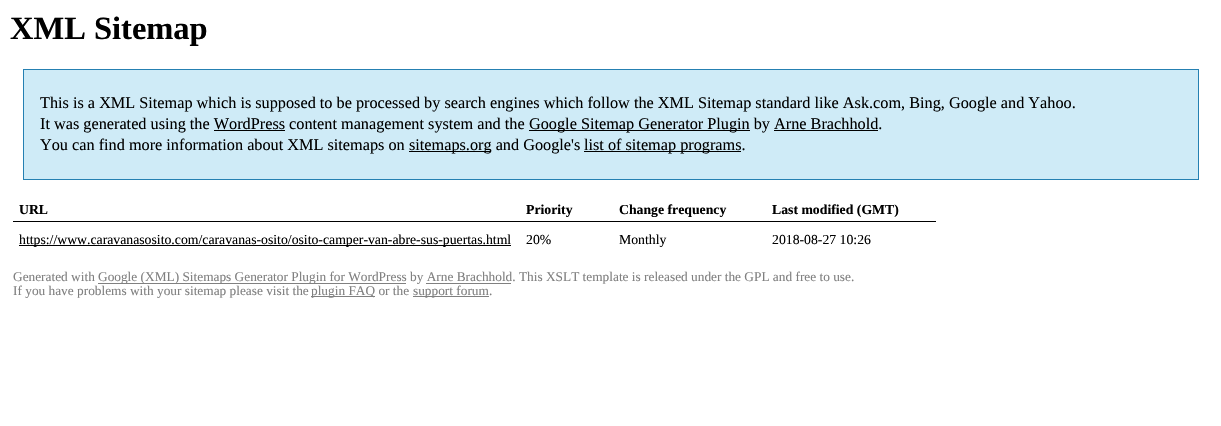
void draw(SkCanvas* canvas) {
  SkPaint paint;
  paint.setAntiAlias(true);
  auto face = [&](const char* family, int weight, float size, bool italic = false) {
    SkFontStyle style(weight, SkFontStyle::kNormal_Width,
      italic ? SkFontStyle::kItalic_Slant : SkFontStyle::kUpright_Slant);
    SkFont result(fontMgr->matchFamilyStyle(family, style), size);
    result.setSubpixel(true);
    return result;
  };
  canvas->clear(0xffffffff);
  paint.setColor(0xffcfebf7);
  canvas->drawRect(SkRect::MakeXYWH(23.5f, 69.5f, 1175, 110), paint);
  paint.setStroke(true);
  paint.setStrokeWidth(1);
  paint.setColor(0xff2580b2);
  canvas->drawRect(SkRect::MakeXYWH(23.5f, 69.5f, 1175, 110), paint);
  paint.setStroke(false);
  {
    const struct { float x, y, w, h; SkColor color; } items[] = {
      {529, 130, 221, 1, 0xff000000},
      {214, 130, 71, 1, 0xff000000},
      {774, 130, 104, 1, 0xff000000},
      {409, 151, 82, 1, 0xff000000},
      {584, 151, 157, 1, 0xff000000},
      {13, 221, 923, 1, 0xff000000},
      {19, 245, 492, 1, 0xff000000},
      {98, 283, 308, 1, 0xff808080},
      {426, 283, 85, 1, 0xff808080},
      {311, 296, 64, 1, 0xff808080},
      {413, 296, 76, 1, 0xff808080},
    };
    for (auto [x, y, w, h, color] : items) {
      paint.setColor(color);
      canvas->drawRect(SkRect::MakeXYWH(x, y, w, h), paint);
    }
  }
  auto f0 = face("Liberation Serif", 700, 32.5f);
  paint.setColor(0xff000000);
  canvas->drawString("XML Sitemap", 10, 39, f0, paint);
  auto f1 = face("Liberation Serif", 400, 16.25f);
  {
    const struct { const char* s; float x, y; } items[] = {
      {"This is a XML Sitemap which is supposed to be processed by search engines which follow the XML Sitemap standard like Ask.com, Bing, Google and Yahoo.", 40, 108},
      {"It was generated using the WordPress content management system and the", 40, 129},
      {"Google Sitemap Generator Plugin by Arne Brachhold.", 529, 129},
      {"You can find more information about XML sitemaps on", 40, 150},
      {"sitemaps.org and Google's", 409, 150},
      {"list of sitemap programs.", 584, 150},
    };
    for (auto [s, x, y] : items) {
      canvas->drawString(s, x, y, f1, paint);
    }
  }
  auto f2 = face("Liberation Serif", 700, 13.75f);
  {
    const struct { const char* s; float x, y; } items[] = {
      {"URL", 19, 214},
      {"Priority", 526, 214},
      {"Change frequency", 619, 214},
      {"Last modified (GMT)", 772, 214},
    };
    for (auto [s, x, y] : items) {
      canvas->drawString(s, x, y, f2, paint);
    }
  }
  auto f3 = face("Liberation Serif", 400, 13.75f);
  {
    const struct { const char* s; float x, y; } items[] = {
      {"https://www.caravanasosito.com/caravanas-osito/osito-camper-van-abre-sus-puertas.html", 19, 244},
      {"20%", 526, 244},
      {"Monthly", 619, 244},
      {"2018-08-27 10:26", 772, 244},
    };
    for (auto [s, x, y] : items) {
      canvas->drawString(s, x, y, f3, paint);
    }
  }
  auto f4 = face("Liberation Serif", 400, 13.33f);
  paint.setColor(0xff808080);
  {
    const struct { const char* s; float x, y; } items[] = {
      {"Generated with", 13, 281},
      {"Google (XML) Sitemaps Generator Plugin for WordPress by Arne Brachhold. This XSLT template is released under the GPL and free to use.", 98, 281},
      {"If you have problems with your sitemap please visit the", 13, 295},
      {"plugin FAQ or the", 311, 295},
      {"support forum.", 413, 295},
    };
    for (auto [s, x, y] : items) {
      canvas->drawString(s, x, y, f4, paint);
    }
  }
}
